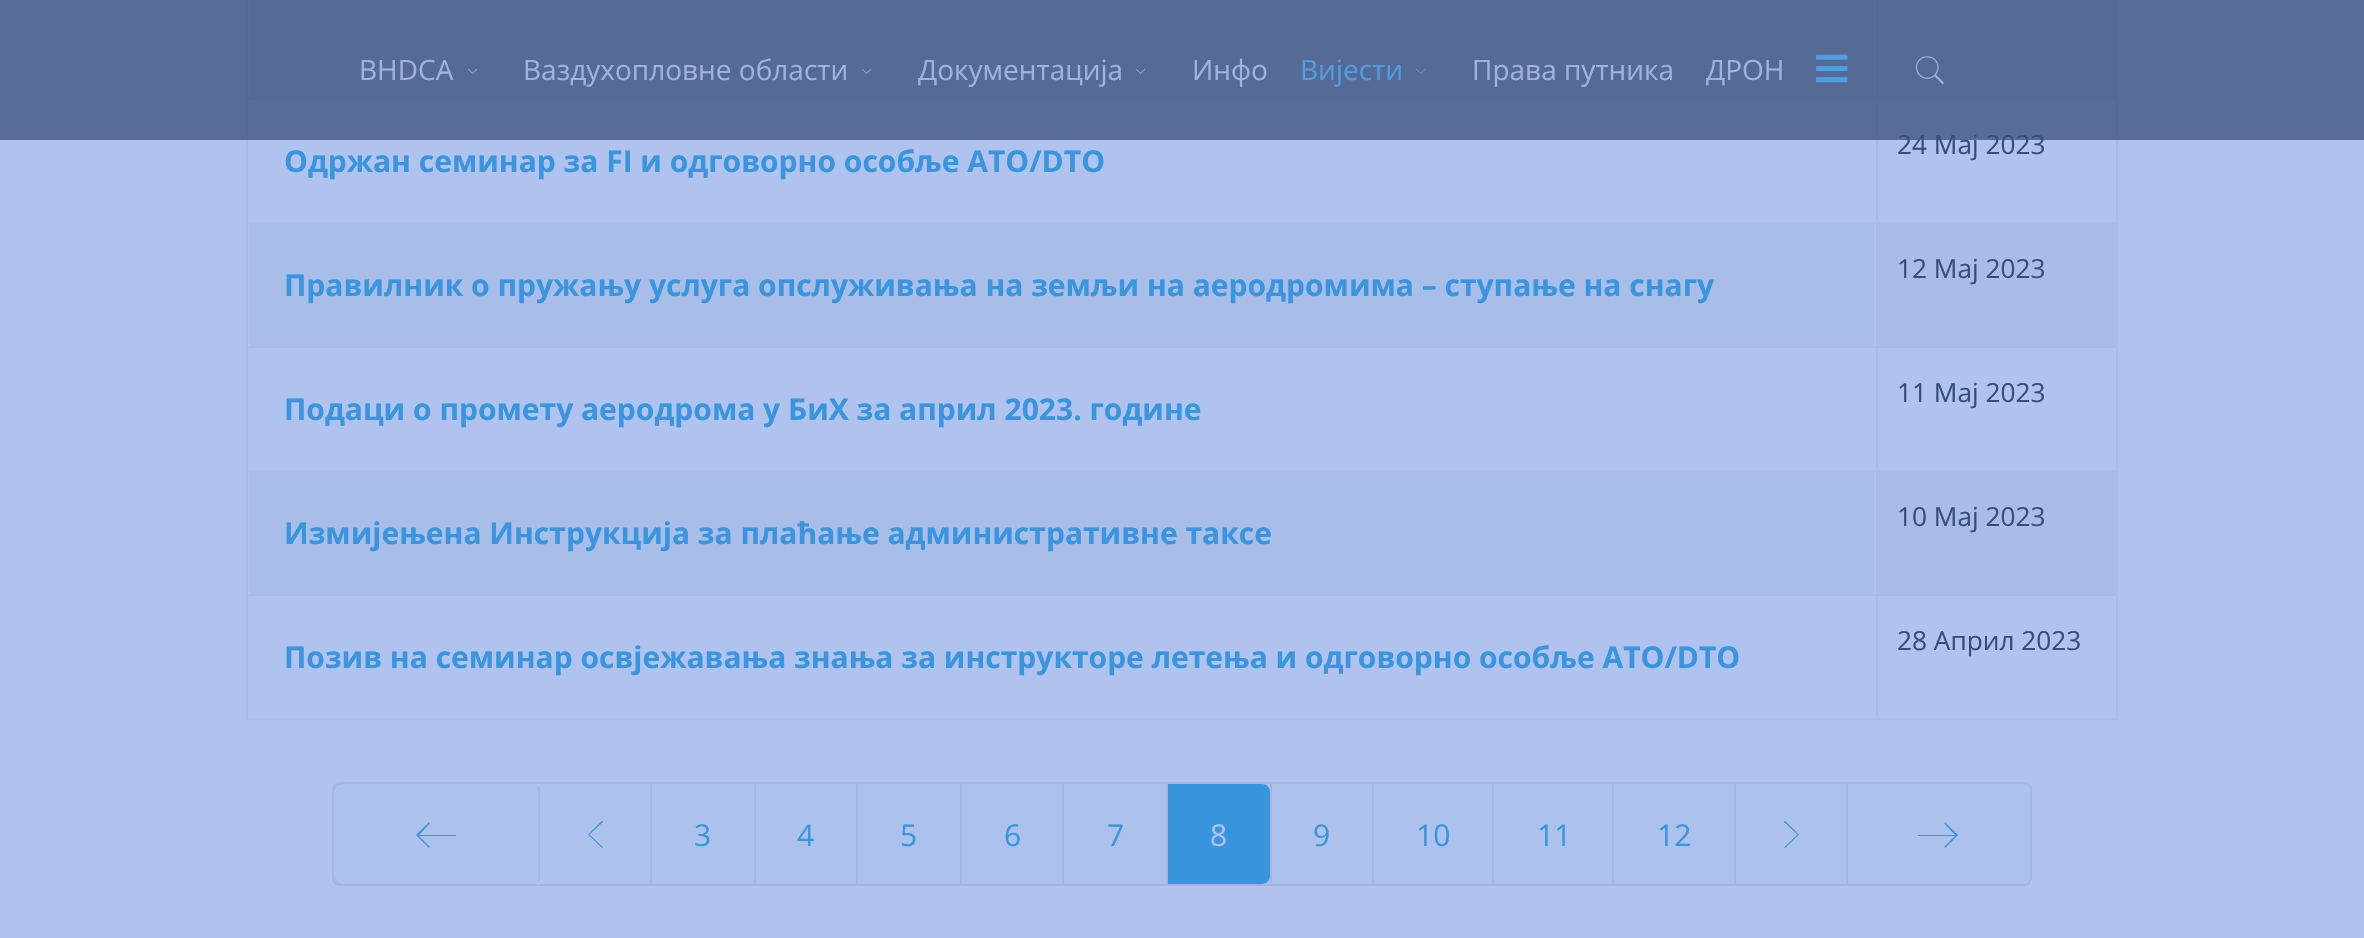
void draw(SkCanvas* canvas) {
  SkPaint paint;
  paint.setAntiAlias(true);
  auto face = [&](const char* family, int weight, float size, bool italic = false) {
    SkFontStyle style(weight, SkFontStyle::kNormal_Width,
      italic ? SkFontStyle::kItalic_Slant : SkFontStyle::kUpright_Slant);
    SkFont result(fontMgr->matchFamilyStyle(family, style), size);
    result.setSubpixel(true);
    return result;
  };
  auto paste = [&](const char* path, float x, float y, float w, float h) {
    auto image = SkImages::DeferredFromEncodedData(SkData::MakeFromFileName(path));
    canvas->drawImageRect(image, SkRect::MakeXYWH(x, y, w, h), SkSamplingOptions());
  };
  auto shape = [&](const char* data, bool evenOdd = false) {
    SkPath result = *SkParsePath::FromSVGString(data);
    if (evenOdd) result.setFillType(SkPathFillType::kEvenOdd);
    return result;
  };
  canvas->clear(0xffafc3ee);
  {
    const struct { float x, y, w, h; SkColor color; } items[] = {
      {250, 0, 1624, 98, 0xffa8bde8},
      {1878, 0, 238, 98, 0xffa8bce7},
      {246, 98, 1872, 2, 0xffa8bce7},
      {246, 222, 1872, 2, 0xffa8bce7},
      {246, 346, 1872, 2, 0xffa8bce7},
      {246, 470, 1872, 2, 0xffa8bce7},
      {246, 594, 1872, 2, 0xffa8bce7},
      {2116, 594, 2, 126, 0xffa8bce7},
      {2116, 470, 2, 126, 0xffa8bce7},
      {2116, 346, 2, 126, 0xffa8bce7},
      {2116, 222, 2, 126, 0xffa8bce7},
      {2116, 0, 2, 224, 0xffa8bce7},
      {246, 718, 1872, 2, 0xffa8bce7},
      {246, 594, 2, 126, 0xffa8bce7},
      {246, 470, 2, 126, 0xffa8bce7},
      {246, 346, 2, 126, 0xffa8bce7},
      {246, 222, 2, 126, 0xffa8bce7},
      {246, 0, 2, 224, 0xffa8bce7},
      {250, 224, 1624, 122, 0xffa8bde8},
      {1878, 224, 238, 122, 0xffa8bce7},
      {250, 472, 1624, 122, 0xffa8bde8},
      {1878, 472, 238, 122, 0xffa8bce7},
      {1876, 0, 2, 720, 0xffa8bce7},
    };
    for (auto [x, y, w, h, color] : items) {
      paint.setColor(color);
      canvas->drawRect(SkRect::MakeXYWH(x, y, w, h), paint);
    }
  }
  paint.setStroke(true);
  paint.setStrokeWidth(2);
  paint.setColor(0xffa1b6e0);
  canvas->drawRoundRect(SkRect::MakeXYWH(333, 783, 1698, 102), 7, 7, paint);
  paint.setStroke(false);
  paint.setColor(0xff449adf);
  canvas->drawRoundRect(SkRect::MakeXYWH(334, 784, 206, 100), 8, 8, paint);
  paint.setColor(0xffa1b6e0);
  canvas->drawRect(SkRect::MakeXYWH(538, 788, 2, 92), paint);
  paint.setColor(0xffacc1eb);
  canvas->drawPath(shape("M342 784H538V884H342C337.5 884 334 880.5 334 876V792C334 787.5 337.5 784 342 784Z"), paint);
  paint.setColor(0xff3895de);
  canvas->drawPath(shape("M456 835H419L430 823L429 822L416 835L429 848L430 847L419 836H456Z"), paint);
  paint.setColor(0xffa1b6e0);
  canvas->drawRect(SkRect::MakeXYWH(650, 784, 2, 100), paint);
  paint.setColor(0xffacc1eb);
  canvas->drawRect(SkRect::MakeXYWH(540, 784, 110, 100), paint);
  paint.setColor(0xff3895de);
  canvas->drawPath(shape("M602 848L588 834.5L602 821L603 822L589.5 834.5L603 847.5Z"), paint);
  {
    const struct { float x, y, w, h; SkColor color; } items[] = {
      {754, 784, 2, 100, 0xffa1b6e0},
      {652, 784, 102, 100, 0xffacc1eb},
      {856, 784, 2, 100, 0xffa1b6e0},
      {756, 784, 100, 100, 0xffacc1eb},
      {960, 784, 2, 100, 0xffa1b6e0},
      {858, 784, 102, 100, 0xffacc1eb},
      {1062, 784, 2, 100, 0xffa1b6e0},
      {962, 784, 100, 100, 0xffacc1eb},
      {1166, 784, 2, 100, 0xffa1b6e0},
      {1064, 784, 102, 100, 0xffacc1eb},
      {1270, 784, 2, 100, 0xffa1b6e0},
    };
    for (auto [x, y, w, h, color] : items) {
      paint.setColor(color);
      canvas->drawRect(SkRect::MakeXYWH(x, y, w, h), paint);
    }
  }
  paint.setColor(0xff3895de);
  canvas->drawPath(shape("M1168 784H1262C1266.5 784 1270 787.5 1270 792V876C1270 880.5 1266.5 884 1262 884H1168Z"), paint);
  {
    const struct { float x, y, w, h; SkColor color; } items[] = {
      {1372, 784, 2, 100, 0xffa1b6e0},
      {1272, 784, 100, 100, 0xffacc1eb},
      {1492, 784, 2, 100, 0xffa1b6e0},
      {1374, 784, 118, 100, 0xffacc1eb},
      {1612, 784, 2, 100, 0xffa1b6e0},
      {1494, 784, 118, 100, 0xffacc1eb},
      {1734, 784, 2, 100, 0xffa1b6e0},
      {1614, 784, 120, 100, 0xffacc1eb},
      {1846, 784, 2, 100, 0xffa1b6e0},
      {1736, 784, 110, 100, 0xffacc1eb},
    };
    for (auto [x, y, w, h, color] : items) {
      paint.setColor(color);
      canvas->drawRect(SkRect::MakeXYWH(x, y, w, h), paint);
    }
  }
  paint.setColor(0xff3895de);
  canvas->drawPath(shape("M1785 848L1784 847.5L1797.5 834.5L1784 822L1785 821L1799 834.5Z"), paint);
  paint.setColor(0xffacc1eb);
  canvas->drawPath(shape("M1848 784H2022C2026.5 784 2030 787.5 2030 792V876C2030 880.5 2026.5 884 2022 884H1848Z"), paint);
  paint.setColor(0xff3895de);
  canvas->drawPath(shape("M1945 822L1944 823L1955 835H1918V836H1955L1944 847L1945 848L1958 835Z"), paint);
  auto f0 = face("Open Sans", 700, 30);
  canvas->drawString("Одржан семинар за FI и одговорно особље АТО/DTO", 284, 172, f0, paint);
  auto f1 = face("Open Sans", 400, 26.25f);
  paint.setColor(0xff374d7a);
  canvas->drawString("24 Мај 2023", 1897, 154, f1, paint);
  paint.setColor(0xbf3a4f79);
  canvas->drawRect(SkRect::MakeXYWH(0, 0, 2364, 140), paint);
  paste("img/4.png", 1915, 56, 29, 29);
  paste("img/3.png", 1816, 54, 32, 29);
  auto f2 = face("Open Sans", 400, 28);
  paint.setColor(0xff9eb2dd);
  canvas->drawString("ДРОН", 1706, 80, f2, paint);
  canvas->drawString("Права путника", 1472, 80, f2, paint);
  paste("img/2.png", 1416, 68, 10, 6);
  paint.setColor(0xff509ee1);
  canvas->drawString("Вијести", 1300, 80, f2, paint);
  paint.setColor(0xff9eb2dd);
  canvas->drawString("Инфо", 1192, 80, f2, paint);
  paste("img/1.png", 1136, 68, 10, 6);
  canvas->drawString("Документација", 918, 80, f2, paint);
  paste("img/1.png", 862, 68, 10, 6);
  canvas->drawString("Ваздухопловне области", 523, 80, f2, paint);
  paste("img/1.png", 468, 68, 10, 6);
  canvas->drawString("BHDCA", 359, 80, f2, paint);
  paint.setColor(0xff3895de);
  canvas->drawString("Правилник о пружању услуга опслуживања на земљи на аеродромима – ступање на снагу", 284, 296, f0, paint);
  paint.setColor(0xff374d7a);
  canvas->drawString("12 Мај 2023", 1897, 278, f1, paint);
  paint.setColor(0xff3895de);
  canvas->drawString("Подаци о промету аеродрома у БиХ за април 2023. године", 284, 420, f0, paint);
  paint.setColor(0xff374d7a);
  canvas->drawString("11 Мај 2023", 1897, 402, f1, paint);
  paint.setColor(0xff3895de);
  canvas->drawString("Измијењена Инструкцијa за плаћање административне таксе", 284, 544, f0, paint);
  paint.setColor(0xff374d7a);
  canvas->drawString("10 Мај 2023", 1897, 526, f1, paint);
  paint.setColor(0xff3895de);
  canvas->drawString("Позив на семинар освјежавања знања за инструкторе летења и одговорно особље АТО/DTO", 284, 668, f0, paint);
  paint.setColor(0xff374d7a);
  canvas->drawString("28 Април 2023", 1897, 650, f1, paint);
  auto f3 = face("Open Sans", 400, 30);
  paint.setColor(0xff3895de);
  {
    const struct { const char* s; float x, y; } items[] = {
      {"3", 694, 846},
      {"4", 797, 846},
      {"5", 900, 846},
      {"6", 1004, 846},
      {"7", 1107, 846},
    };
    for (auto [s, x, y] : items) {
      canvas->drawString(s, x, y, f3, paint);
    }
  }
  paint.setColor(0xffafc3ee);
  canvas->drawString("8", 1210, 846, f3, paint);
  paint.setColor(0xff3895de);
  {
    const struct { const char* s; float x, y; } items[] = {
      {"9", 1313, 846},
      {"10", 1416, 846},
      {"11", 1537, 846},
      {"12", 1657, 846},
    };
    for (auto [s, x, y] : items) {
      canvas->drawString(s, x, y, f3, paint);
    }
  }
}
